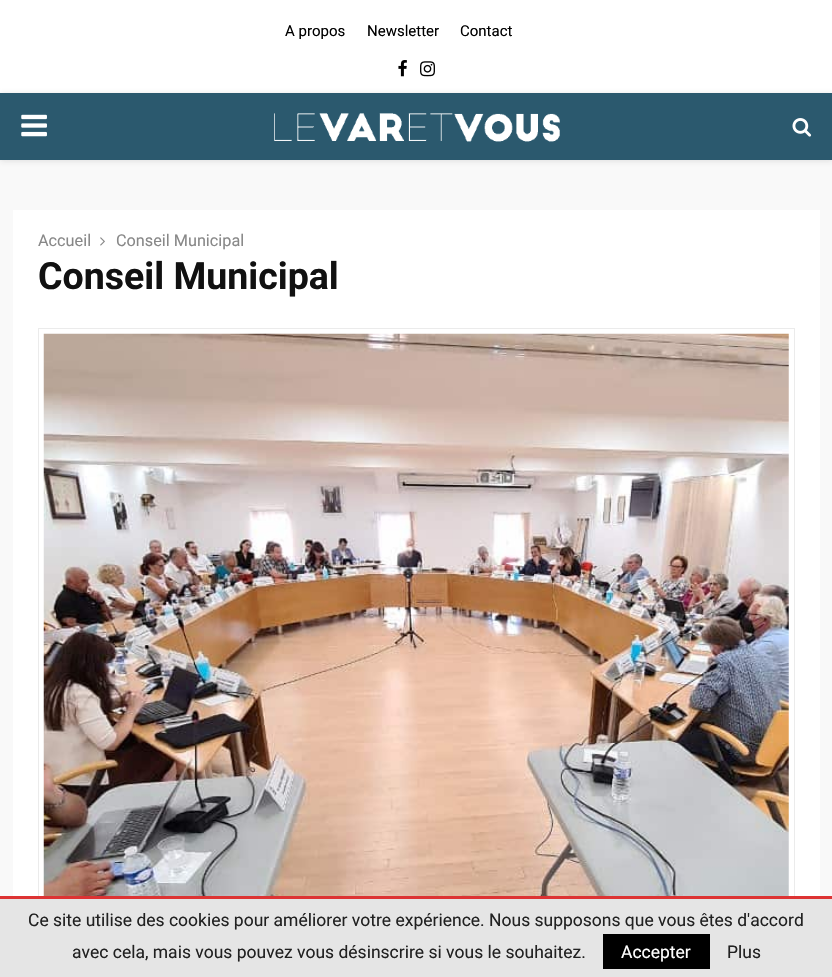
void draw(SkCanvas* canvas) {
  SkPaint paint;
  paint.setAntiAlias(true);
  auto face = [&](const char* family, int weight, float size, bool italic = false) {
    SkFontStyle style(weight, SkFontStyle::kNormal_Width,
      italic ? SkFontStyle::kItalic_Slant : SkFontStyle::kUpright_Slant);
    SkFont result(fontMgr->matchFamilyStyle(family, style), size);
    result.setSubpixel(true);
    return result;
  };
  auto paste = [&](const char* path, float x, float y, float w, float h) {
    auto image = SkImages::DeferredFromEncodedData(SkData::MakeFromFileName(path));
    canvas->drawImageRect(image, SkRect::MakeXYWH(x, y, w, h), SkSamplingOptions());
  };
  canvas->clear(0xfff9f9f9);
  paint.setColor(0xffffffff);
  canvas->drawRect(SkRect::MakeXYWH(0, 0, 832, 93), paint);
  paste("img/1.png", 398, 60, 9, 17);
  paste("img/2.png", 420, 61, 15, 16);
  paint.setColor(0x75bebebe);
  paint.setMaskFilter(SkMaskFilter::MakeBlur(kNormal_SkBlurStyle, 3));
  canvas->drawRect(SkRect::MakeXYWH(0, 94, 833, 67), paint);
  paint.setMaskFilter(nullptr);
  paint.setColor(0xff2b596e);
  canvas->drawRect(SkRect::MakeXYWH(0, 93, 832, 67), paint);
  paste("img/3.png", 21, 114, 26, 23);
  paste("img/4.png", 274, 113, 286, 29);
  paste("img/5.png", 792, 118, 20, 19);
  paint.setColor(0xffffffff);
  canvas->drawRect(SkRect::MakeXYWH(13, 210, 807, 686), paint);
  paste("img/6.png", 100, 237, 5, 9);
  paint.setStroke(true);
  paint.setStrokeWidth(1);
  paint.setColor(0xffebebeb);
  canvas->drawRect(SkRect::MakeXYWH(38.5f, 328.5f, 756, 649), paint);
  paste("img/7.png", 43, 333, 746, 563);
  paint.setStroke(false);
  {
    const struct { float x, y, w, h; SkColor color; } items[] = {
      {0, 899, 832, 78, 0xffe5e5e5},
      {0, 896, 832, 3, 0xffdd3333},
      {603, 934, 107, 35, 0xff000000},
    };
    for (auto [x, y, w, h, color] : items) {
      paint.setColor(color);
      canvas->drawRect(SkRect::MakeXYWH(x, y, w, h), paint);
    }
  }
  auto f0 = face("Roboto", 400, 15);
  {
    const struct { const char* s; float x, y; } items[] = {
      {"A propos", 285, 36},
      {"Newsletter", 367, 36},
      {"Contact", 460, 36},
    };
    for (auto [s, x, y] : items) {
      canvas->drawString(s, x, y, f0, paint);
    }
  }
  auto f1 = face("Roboto", 400, 16.25f);
  paint.setColor(0xff888888);
  canvas->drawString("Accueil", 38, 246, f1, paint);
  canvas->drawString("Conseil Municipal", 116, 246, f1, paint);
  auto f2 = face("Roboto", 700, 37.5f);
  paint.setColor(0xff111111);
  canvas->drawString("Conseil Municipal", 38, 289, f2, paint);
  auto f3 = face("Roboto", 400, 17.5f);
  paint.setColor(0xff212121);
  canvas->drawString("Ce site utilise des cookies pour améliorer votre expérience. Nous supposons que vous êtes d'accord", 28, 926, f3, paint);
  canvas->drawString("avec cela, mais vous pouvez vous désinscrire si vous le souhaitez.", 72, 958, f3, paint);
  paint.setColor(0xffffffff);
  canvas->drawString("Accepter", 621, 958, f3, paint);
  paint.setColor(0xff212121);
  canvas->drawString("Plus", 727, 958, f3, paint);
}
